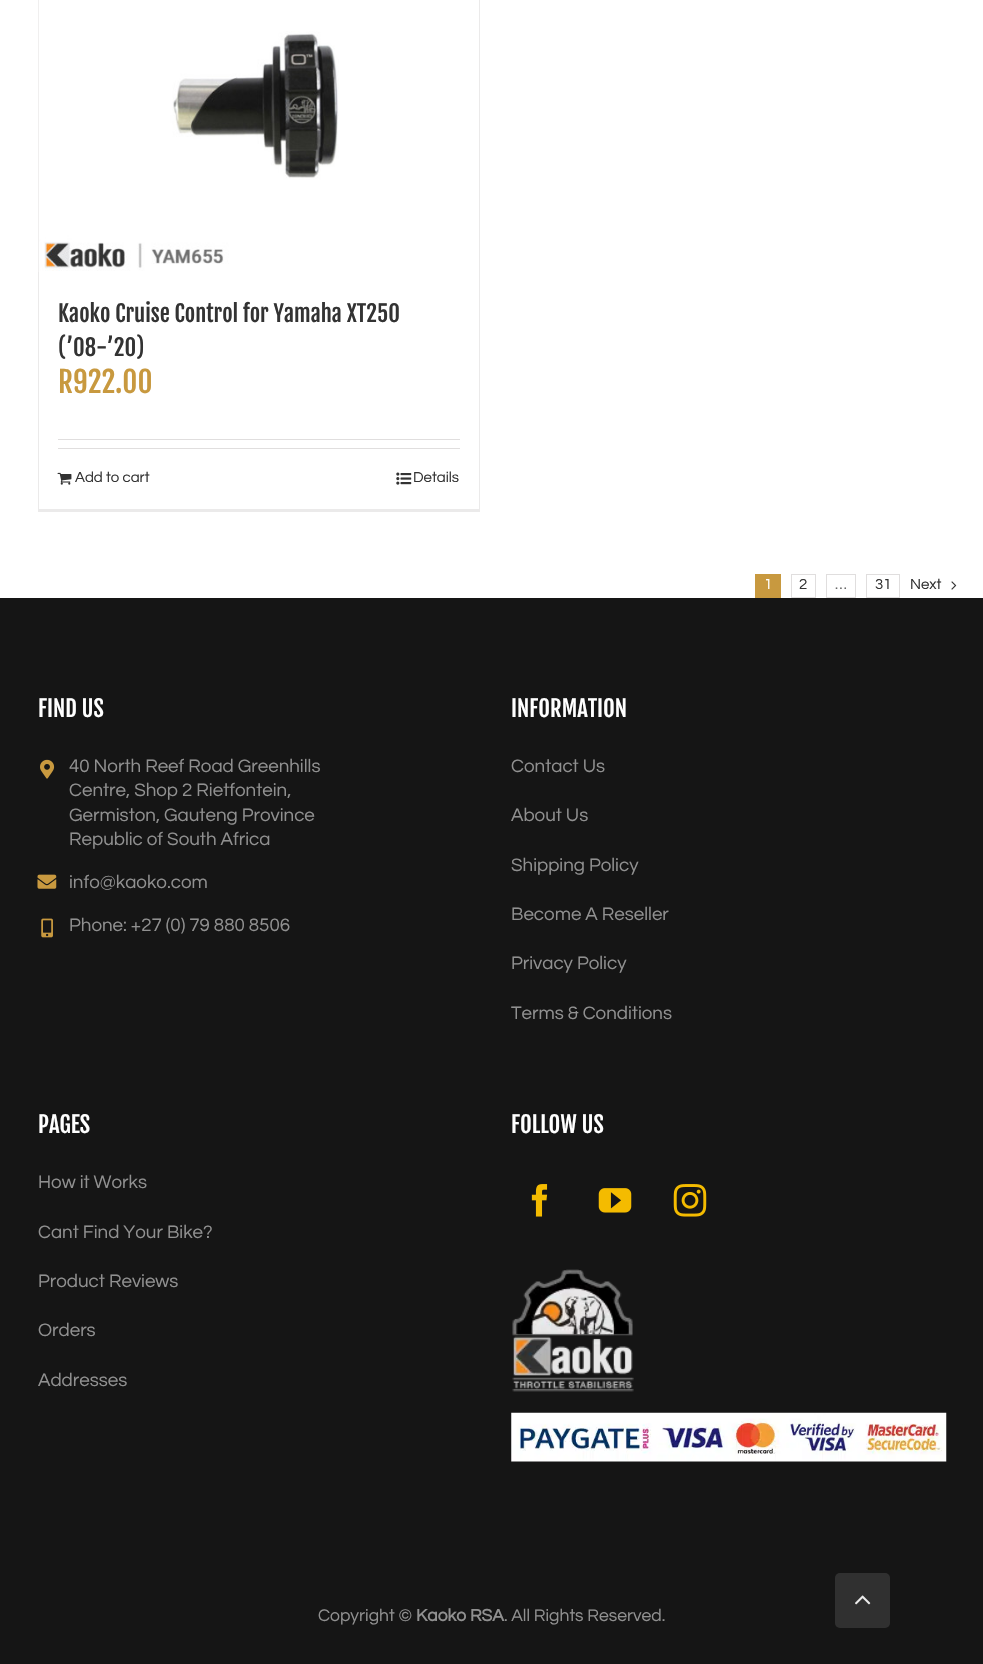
void draw(SkCanvas* canvas) {
  SkPaint paint;
  paint.setAntiAlias(true);
  auto face = [&](const char* family, int weight, float size, bool italic = false) {
    SkFontStyle style(weight, SkFontStyle::kNormal_Width,
      italic ? SkFontStyle::kItalic_Slant : SkFontStyle::kUpright_Slant);
    SkFont result(fontMgr->matchFamilyStyle(family, style), size);
    result.setSubpixel(true);
    return result;
  };
  auto paste = [&](const char* path, float x, float y, float w, float h) {
    auto image = SkImages::DeferredFromEncodedData(SkData::MakeFromFileName(path));
    canvas->drawImageRect(image, SkRect::MakeXYWH(x, y, w, h), SkSamplingOptions());
  };
  canvas->clear(0xffffffff);
  {
    const struct { float x, y, w, h; SkColor color; } items[] = {
      {479, 0, 1, 511, 0xffebeaea},
      {38, 509, 442, 3, 0xffebeaea},
      {38, 0, 1, 511, 0xffebeaea},
    };
    for (auto [x, y, w, h, color] : items) {
      paint.setColor(color);
      canvas->drawRect(SkRect::MakeXYWH(x, y, w, h), paint);
    }
  }
  paste("img/1.png", 38, 0, 301, 272);
  paint.setColor(0xffe0dede);
  canvas->drawRect(SkRect::MakeXYWH(58, 439, 402, 1), paint);
  canvas->drawRect(SkRect::MakeXYWH(58, 448, 402, 1), paint);
  paste("img/2.png", 57, 472, 15, 13);
  paste("img/3.png", 396, 472, 16, 13);
  paint.setColor(0xffc8993f);
  canvas->drawRect(SkRect::MakeXYWH(755, 574, 26, 24), paint);
  paint.setStroke(true);
  paint.setStrokeWidth(1);
  paint.setColor(0xffe0dede);
  canvas->drawRect(SkRect::MakeXYWH(791.5f, 574.5f, 24, 23), paint);
  canvas->drawRect(SkRect::MakeXYWH(826.5f, 574.5f, 29, 23), paint);
  canvas->drawRect(SkRect::MakeXYWH(866.5f, 574.5f, 33, 23), paint);
  paste("img/4.png", 951, 581, 6, 9);
  paint.setStroke(false);
  paint.setColor(0xff151515);
  canvas->drawRect(SkRect::MakeXYWH(0, 598, 983, 1066), paint);
  paste("img/5.png", 40, 759, 15, 20);
  paste("img/6.png", 37, 874, 20, 15);
  paste("img/7.png", 41, 918, 12, 20);
  paste("img/8.png", 531, 1184, 17, 33);
  paste("img/9.png", 598, 1188, 34, 25);
  paste("img/10.png", 673, 1184, 34, 33);
  paste("img/11.png", 512, 1269, 122, 123);
  paste("img/12.png", 511, 1412, 436, 50);
  paint.setColor(0xff303030);
  canvas->drawRoundRect(SkRect::MakeXYWH(835, 1573, 55, 55), 5, 5, paint);
  paste("img/13.png", 855, 1595, 16, 10);
  auto f0 = face("Fjalla One", 400, 22.5f);
  paint.setColor(0xff333333);
  canvas->drawString("Kaoko Cruise Control for Yamaha XT250", 58, 322, f0, paint);
  canvas->drawString("(’08-’20)", 58, 356, f0, paint);
  auto f1 = face("Fjalla One", 400, 29);
  paint.setColor(0xffc8993f);
  canvas->drawString("R922.00", 58, 393, f1, paint);
  auto f2 = face("Questrial", 400, 15);
  paint.setColor(0xff333333);
  canvas->drawString("Add to cart", 75, 482, f2, paint);
  canvas->drawString("Details", 413, 482, f2, paint);
  paint.setColor(0xffffffff);
  canvas->drawString("1", 764, 589, f2, paint);
  paint.setColor(0xff333333);
  canvas->drawString("2", 799, 589, f2, paint);
  paint.setColor(0xff676767);
  canvas->drawString("…", 835, 589, f2, paint);
  paint.setColor(0xff333333);
  canvas->drawString("31", 875, 589, f2, paint);
  canvas->drawString("Next", 910, 589, f2, paint);
  paint.setColor(0xffffffff);
  canvas->drawString("FIND US", 38, 717, f0, paint);
  auto f3 = face("Questrial", 400, 18.75f);
  paint.setColor(0xff909090);
  {
    const struct { const char* s; float x, y; } items[] = {
      {"40 North Reef Road Greenhills", 69, 772},
      {"Centre, Shop 2 Rietfontein,", 69, 796},
      {"Germiston, Gauteng Province", 69, 821},
      {"Republic of South Africa", 69, 845},
      {"info@kaoko.com", 69, 888},
      {"Phone: +27 (0) 79 880 8506", 69, 931},
    };
    for (auto [s, x, y] : items) {
      canvas->drawString(s, x, y, f3, paint);
    }
  }
  paint.setColor(0xffffffff);
  canvas->drawString("INFORMATION", 511, 717, f0, paint);
  paint.setColor(0xff909090);
  {
    const struct { const char* s; float x, y; } items[] = {
      {"Contact Us", 511, 772},
      {"About Us", 511, 821},
      {"Shipping Policy", 511, 871},
      {"Become A Reseller", 511, 920},
      {"Privacy Policy", 511, 969},
      {"Terms & Conditions", 511, 1019},
    };
    for (auto [s, x, y] : items) {
      canvas->drawString(s, x, y, f3, paint);
    }
  }
  paint.setColor(0xffffffff);
  canvas->drawString("PAGES", 38, 1133, f0, paint);
  paint.setColor(0xff909090);
  {
    const struct { const char* s; float x, y; } items[] = {
      {"How it Works", 38, 1188},
      {"Cant Find Your Bike?", 38, 1238},
      {"Product Reviews", 38, 1287},
      {"Orders", 38, 1336},
      {"Addresses", 38, 1386},
    };
    for (auto [s, x, y] : items) {
      canvas->drawString(s, x, y, f3, paint);
    }
  }
  paint.setColor(0xffffffff);
  canvas->drawString("FOLLOW US", 511, 1133, f0, paint);
  auto f4 = face("Questrial", 400, 17.5f);
  paint.setColor(0xff909090);
  canvas->drawString("Copyright ©", 318, 1621, f4, paint);
  auto f5 = face("Questrial", 700, 17.5f);
  canvas->drawString("Kaoko RSA", 416, 1621, f5, paint);
  canvas->drawString(". All Rights Reserved.", 504, 1621, f4, paint);
}
